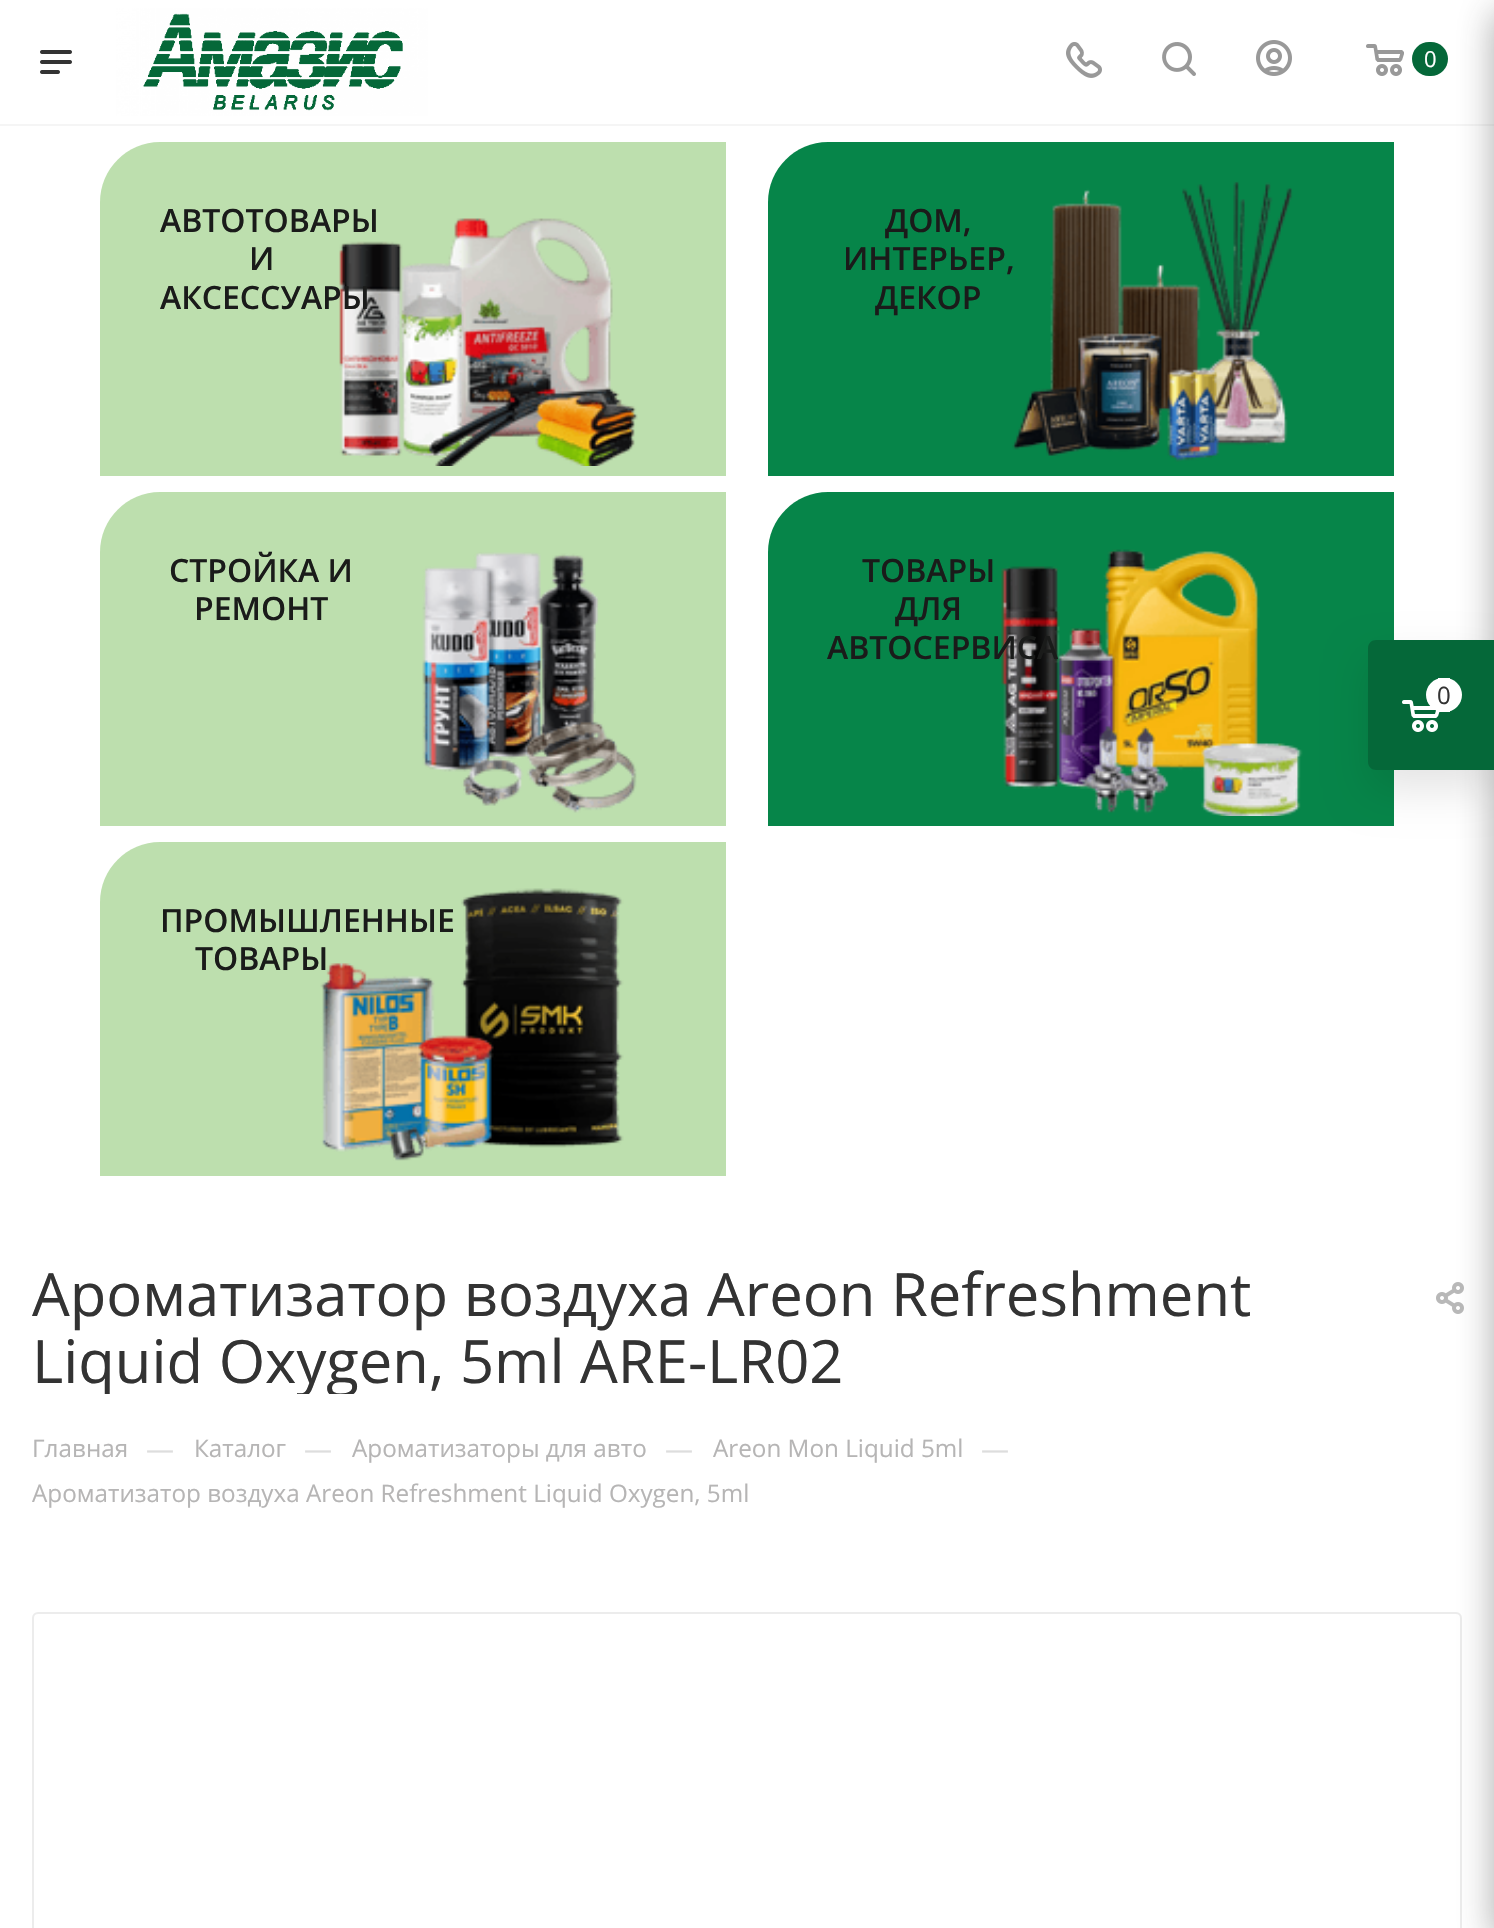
void draw(SkCanvas* canvas) {
  SkPaint paint;
  paint.setAntiAlias(true);
  auto face = [&](const char* family, int weight, float size, bool italic = false) {
    SkFontStyle style(weight, SkFontStyle::kNormal_Width,
      italic ? SkFontStyle::kItalic_Slant : SkFontStyle::kUpright_Slant);
    SkFont result(fontMgr->matchFamilyStyle(family, style), size);
    result.setSubpixel(true);
    return result;
  };
  auto paste = [&](const char* path, float x, float y, float w, float h) {
    auto image = SkImages::DeferredFromEncodedData(SkData::MakeFromFileName(path));
    canvas->drawImageRect(image, SkRect::MakeXYWH(x, y, w, h), SkSamplingOptions());
  };
  auto shape = [&](const char* data, bool evenOdd = false) {
    SkPath result = *SkParsePath::FromSVGString(data);
    if (evenOdd) result.setFillType(SkPathFillType::kEvenOdd);
    return result;
  };
  canvas->clear(0xffffffff);
  paint.setColor(0xfff5f5f5);
  canvas->drawRect(SkRect::MakeXYWH(0, 124, 1494, 2), paint);
  paste("img/1.png", 40, 50, 32, 24);
  paint.setColor(0xff056839);
  canvas->drawRect(SkRect::MakeXYWH(143, 13, 260, 98), paint);
  paste("img/2.png", 116, 8, 312, 108);
  paste("img/3.png", 1066, 42, 36, 36);
  paste("img/4.png", 1162, 42, 34, 34);
  paste("img/5.png", 1256, 40, 36, 36);
  paste("img/6.png", 1366, 44, 38, 32);
  canvas->drawRoundRect(SkRect::MakeXYWH(1412, 42, 36, 34), 17, 17, paint);
  paint.setColor(0xffbddfae);
  canvas->drawPath(shape("M160 142H726V476H100V202C100 169 127 142 160 142Z"), paint);
  paste("img/7.png", 339, 218, 299, 248);
  paint.setColor(0xff068549);
  canvas->drawPath(shape("M828 142H1394V476H768V202C768 169 795 142 828 142Z"), paint);
  paste("img/8.png", 1012, 181, 281, 281);
  paint.setColor(0xffbddfae);
  canvas->drawPath(shape("M160 492H726V826H100V552C100 519 127 492 160 492Z"), paint);
  paste("img/9.png", 422, 552, 215, 261);
  paint.setColor(0xff068549);
  canvas->drawPath(shape("M828 492H1394V826H768V552C768 519 795 492 828 492Z"), paint);
  paste("img/10.png", 1001, 549, 302, 267);
  paint.setColor(0xffbddfae);
  canvas->drawPath(shape("M160 842H726V1176H100V902C100 869 127 842 160 842Z"), paint);
  paste("img/11.png", 320, 888, 304, 273);
  paste("img/12.png", 1436, 1282, 28, 32);
  paint.setStroke(true);
  paint.setStrokeWidth(2);
  paint.setColor(0xffececec);
  canvas->drawRoundRect(SkRect::MakeXYWH(33, 1613, 1428, 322), 5, 5, paint);
  paint.setStroke(false);
  paint.setColor(0x662c2c2c);
  paint.setMaskFilter(SkMaskFilter::MakeBlur(kNormal_SkBlurStyle, 18));
  canvas->drawRoundRect(SkRect::MakeXYWH(1494, 12, 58, 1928), 4, 4, paint);
  paint.setMaskFilter(nullptr);
  paint.setColor(0x1a000000);
  paint.setMaskFilter(SkMaskFilter::MakeBlur(kNormal_SkBlurStyle, 20));
  canvas->drawRoundRect(SkRect::MakeXYWH(1368, 660, 126, 130), 8, 8, paint);
  paint.setMaskFilter(nullptr);
  paint.setColor(0xff056839);
  canvas->drawPath(shape("M1376 640H1494V770H1376C1371.5 770 1368 766.5 1368 762V648C1368 643.5 1371.5 640 1376 640Z"), paint);
  paste("img/13.png", 1402, 700, 38, 32);
  paint.setColor(0xffffffff);
  canvas->drawRoundRect(SkRect::MakeXYWH(1426, 678, 36, 34), 17, 17, paint);
  canvas->drawRect(SkRect::MakeXYWH(1438, 678, 12, 34), paint);
  auto f0 = face("Open Sans", 400, 22);
  canvas->drawString("0", 1424, 67, f0, paint);
  auto f1 = face("Open Sans", 600, 32);
  paint.setColor(0xff1a1b1a);
  {
    const struct { const char* s; float x, y; } items[] = {
      {"АВТОТОВАРЫ", 160, 232},
      {"И", 249, 270},
      {"АКСЕССУАРЫ", 160, 309},
      {"ДОМ,", 885, 232},
      {"ИНТЕРЬЕР,", 843, 270},
      {"ДЕКОР", 875, 309},
      {"СТРОЙКА И", 169, 582},
      {"РЕМОНТ", 194, 620},
      {"ТОВАРЫ", 862, 582},
      {"ДЛЯ", 895, 620},
      {"АВТОСЕРВИСА", 827, 659},
      {"ПРОМЫШЛЕННЫЕ", 160, 932},
      {"ТОВАРЫ", 195, 970},
    };
    for (auto [s, x, y] : items) {
      canvas->drawString(s, x, y, f1, paint);
    }
  }
  auto f2 = face("Open Sans", 400, 59.75f);
  paint.setColor(0xff333333);
  canvas->drawString("Ароматизатор воздуха Areon Refreshment", 32, 1316, f2, paint);
  canvas->save();
  canvas->clipRect(SkRect::MakeXYWH(32, 1260, 1338, 134));
  canvas->drawString("Liquid Oxygen, 5ml ARE-LR02", 32, 1383, f2, paint);
  canvas->restore();
  auto f3 = face("Open Sans", 400, 24.25f);
  paint.setColor(0xffb6b5b5);
  canvas->drawString("Главная", 32, 1457, f3, paint);
  auto f4 = face("Open Sans", 400, 28);
  paint.setColor(0xffdddddd);
  canvas->drawString("—", 146, 1459, f4, paint);
  paint.setColor(0xffb6b5b5);
  canvas->drawString("Каталог", 194, 1457, f3, paint);
  paint.setColor(0xffdddddd);
  canvas->drawString("—", 304, 1459, f4, paint);
  paint.setColor(0xffb6b5b5);
  canvas->drawString("Ароматизаторы для авто", 352, 1457, f3, paint);
  paint.setColor(0xffdddddd);
  canvas->drawString("—", 665, 1459, f4, paint);
  paint.setColor(0xffb6b5b5);
  canvas->drawString("Areon Mon Liquid 5ml", 713, 1457, f3, paint);
  paint.setColor(0xffdddddd);
  canvas->drawString("—", 981, 1459, f4, paint);
  paint.setColor(0xffb6b5b5);
  canvas->drawString("Ароматизатор воздуха Areon Refreshment Liquid Oxygen, 5ml", 32, 1502, f3, paint);
  auto f5 = face("Open Sans", 400, 24);
  paint.setColor(0xff333333);
  canvas->drawString("0", 1437, 704, f5, paint);
}
